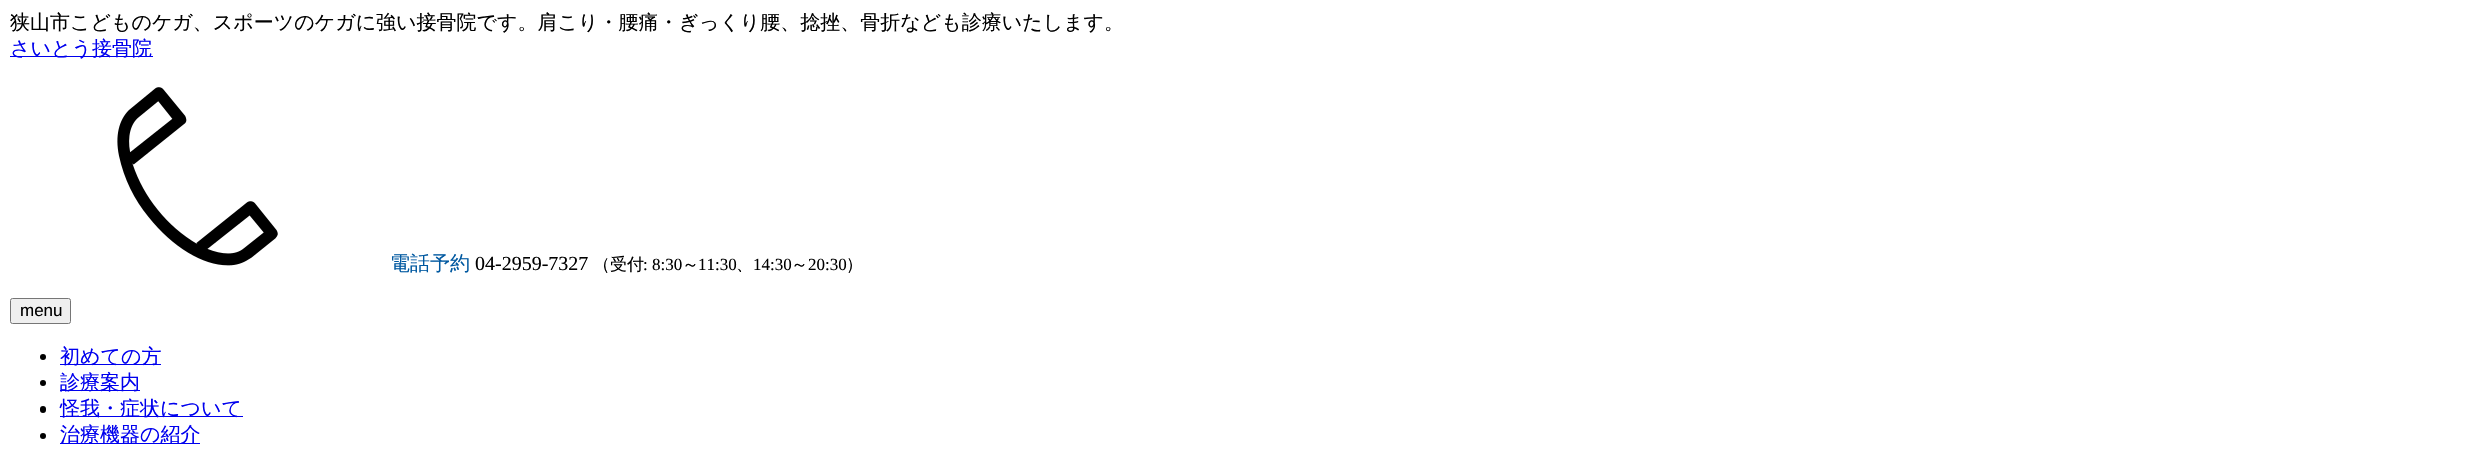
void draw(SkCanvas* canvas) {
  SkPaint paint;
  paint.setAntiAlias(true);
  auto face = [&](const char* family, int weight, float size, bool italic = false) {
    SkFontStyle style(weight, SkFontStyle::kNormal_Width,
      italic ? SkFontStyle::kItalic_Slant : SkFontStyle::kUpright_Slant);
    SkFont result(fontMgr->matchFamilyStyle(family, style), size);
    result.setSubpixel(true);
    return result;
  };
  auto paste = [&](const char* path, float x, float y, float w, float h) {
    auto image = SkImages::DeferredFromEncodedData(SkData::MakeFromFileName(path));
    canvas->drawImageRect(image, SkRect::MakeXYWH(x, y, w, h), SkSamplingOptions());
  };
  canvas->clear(0xffffffff);
  paint.setColor(0xff0000ee);
  canvas->drawRect(SkRect::MakeXYWH(10, 56, 143, 1), paint);
  paste("img/1.png", 117, 87, 161, 179);
  paint.setColor(0xffefefef);
  canvas->drawRoundRect(SkRect::MakeXYWH(10.5f, 298.5f, 60, 25), 2, 2, paint);
  paint.setStroke(true);
  paint.setStrokeWidth(1);
  paint.setColor(0xff767676);
  canvas->drawRoundRect(SkRect::MakeXYWH(10.5f, 298.5f, 60, 25), 2, 2, paint);
  paint.setStroke(false);
  paint.setColor(0xff000000);
  canvas->drawCircle(43, 357, 3, paint);
  paint.setColor(0xff0000ee);
  canvas->drawRect(SkRect::MakeXYWH(60, 364, 101, 1), paint);
  paint.setColor(0xff000000);
  canvas->drawCircle(43, 383, 3, paint);
  paint.setColor(0xff0000ee);
  canvas->drawRect(SkRect::MakeXYWH(60, 390, 80, 1), paint);
  paint.setColor(0xff000000);
  canvas->drawRoundRect(SkRect::MakeXYWH(40, 406, 6, 7), 3, 3, paint);
  paint.setColor(0xff0000ee);
  canvas->drawRect(SkRect::MakeXYWH(60, 416, 183, 1), paint);
  paint.setColor(0xff000000);
  canvas->drawCircle(43, 436, 3, paint);
  paint.setColor(0xff0000ee);
  canvas->drawRect(SkRect::MakeXYWH(60, 443, 140, 1), paint);
  auto f0 = face("WenQuanYi Zen Hei", 500, 20);
  paint.setColor(0xff000000);
  canvas->drawString("狭山市こどものケガ、スポーツのケガに強い接骨院です。肩こり・腰痛・ぎっくり腰、捻挫、骨折なども診療いたします。", 10, 29, f0, paint);
  paint.setColor(0xff0000ee);
  canvas->drawString("さいとう接骨院", 10, 55, f0, paint);
  paint.setColor(0xff0058a0);
  canvas->drawString("電話予約", 390, 270, f0, paint);
  auto f1 = face("Liberation Serif", 400, 20);
  paint.setColor(0xff000000);
  canvas->drawString("04-2959-7327", 475, 270, f1, paint);
  auto f2 = face("WenQuanYi Zen Hei", 500, 17);
  canvas->drawString("（受付", 593, 270, f2, paint);
  auto f3 = face("Liberation Serif", 400, 17);
  canvas->drawString(": 8:30", 643, 270, f3, paint);
  canvas->drawString("～", 682, 270, f2, paint);
  canvas->drawString("11:30", 698, 270, f3, paint);
  canvas->drawString("14:30", 753, 270, f3, paint);
  canvas->drawString("～", 791, 270, f2, paint);
  canvas->drawString("20:30", 808, 270, f3, paint);
  canvas->drawString("）", 846, 270, f2, paint);
  canvas->drawString("、", 736, 270, f2, paint);
  auto f4 = face("Liberation Sans", 400, 17);
  canvas->drawString("menu", 20, 316, f4, paint);
  paint.setColor(0xff0000ee);
  {
    const struct { const char* s; float x, y; } items[] = {
      {"初めての方", 60, 363},
      {"診療案内", 60, 389},
      {"怪我・症状について", 60, 415},
      {"治療機器の紹介", 60, 441},
    };
    for (auto [s, x, y] : items) {
      canvas->drawString(s, x, y, f0, paint);
    }
  }
}
